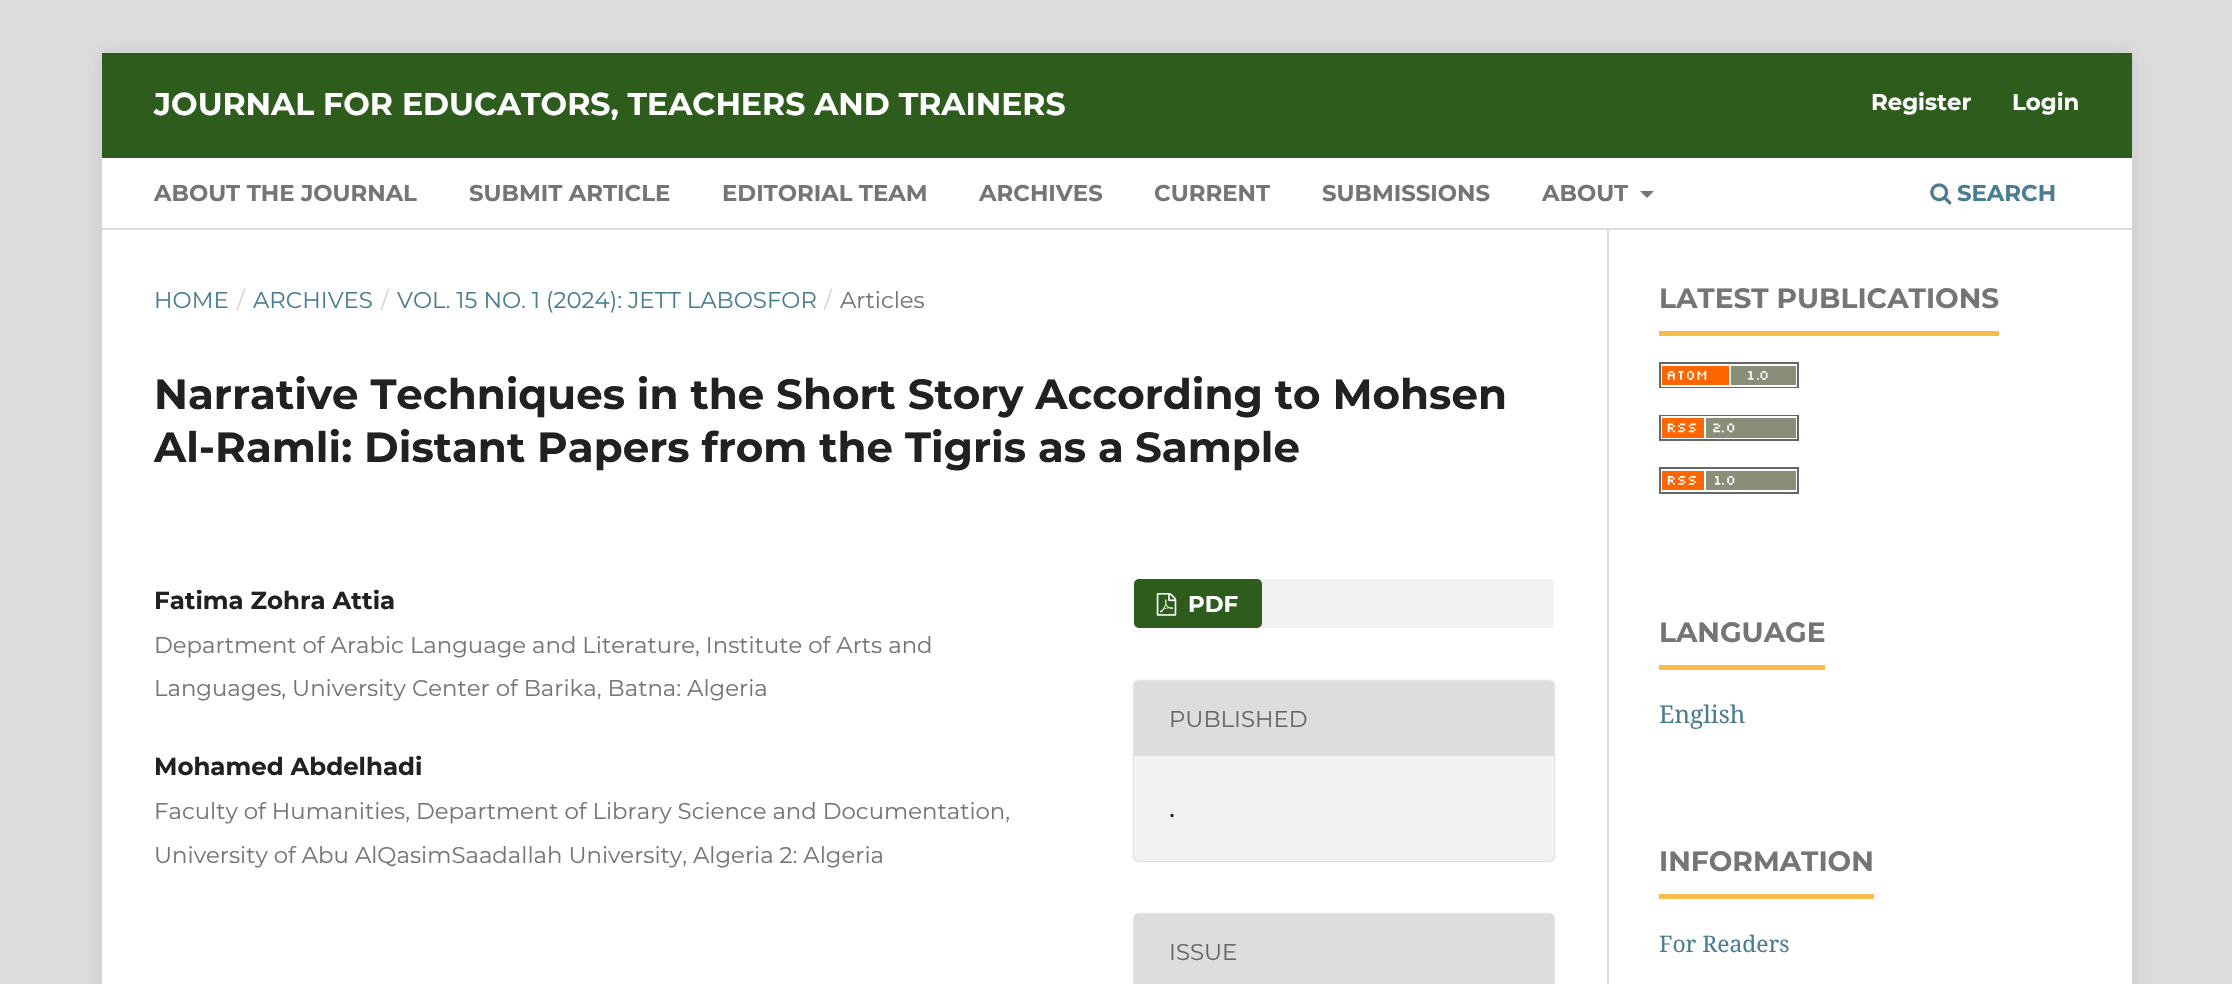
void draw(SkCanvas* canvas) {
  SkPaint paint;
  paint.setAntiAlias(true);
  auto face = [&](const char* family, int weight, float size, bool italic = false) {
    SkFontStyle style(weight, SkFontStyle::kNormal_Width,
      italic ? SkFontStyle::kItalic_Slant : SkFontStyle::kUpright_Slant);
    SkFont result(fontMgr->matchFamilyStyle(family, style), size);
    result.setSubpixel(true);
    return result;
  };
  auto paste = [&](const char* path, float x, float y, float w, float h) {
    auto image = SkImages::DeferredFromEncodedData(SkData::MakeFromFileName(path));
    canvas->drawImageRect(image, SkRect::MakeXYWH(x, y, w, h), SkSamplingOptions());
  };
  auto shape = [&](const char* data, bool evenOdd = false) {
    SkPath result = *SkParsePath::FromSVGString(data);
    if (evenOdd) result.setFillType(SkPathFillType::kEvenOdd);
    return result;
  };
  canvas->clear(0xffdddddd);
  paint.setColor(0x1a000000);
  paint.setMaskFilter(SkMaskFilter::MakeBlur(kNormal_SkBlurStyle, 9));
  canvas->drawRect(SkRect::MakeXYWH(102, 53, 2030, 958), paint);
  paint.setMaskFilter(nullptr);
  {
    const struct { float x, y, w, h; SkColor color; } items[] = {
      {102, 230, 2030, 754, 0xffffffff},
      {102, 53, 2030, 105, 0xff2e5c1c},
      {102, 228, 2030, 2, 0xffdddddd},
      {102, 158, 2030, 70, 0xffffffff},
    };
    for (auto [x, y, w, h, color] : items) {
      paint.setColor(color);
      canvas->drawRect(SkRect::MakeXYWH(x, y, w, h), paint);
    }
  }
  paint.setColor(0xff757575);
  canvas->drawPath(shape("M1640 191H1654L1647 198Z"), paint);
  paste("img/1.png", 1930, 183, 22, 22);
  paint.setColor(0xfff2f2f2);
  canvas->drawRoundRect(SkRect::MakeXYWH(1134, 579, 420, 49), 5, 5, paint);
  paint.setColor(0xff2e5c1c);
  canvas->drawRoundRect(SkRect::MakeXYWH(1134, 579, 128, 49), 5, 5, paint);
  paste("img/2.png", 1156, 593, 21, 23);
  canvas->save();
  canvas->clipPath(shape("M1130 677H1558V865H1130ZM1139 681H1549C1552 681 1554 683 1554 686V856C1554 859 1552 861 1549 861H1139C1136 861 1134 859 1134 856V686C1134 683 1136 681 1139 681Z", true), true);
  paint.setColor(0x66000000);
  paint.setMaskFilter(SkMaskFilter::MakeBlur(kNormal_SkBlurStyle, 1));
  canvas->drawRoundRect(SkRect::MakeXYWH(1134, 681, 420, 180), 5, 5, paint);
  paint.setMaskFilter(nullptr);
  canvas->restore();
  paint.setColor(0x0d000000);
  canvas->drawRect(SkRect::MakeXYWH(1134, 681, 420, 180), paint);
  paint.setColor(0xffdddddd);
  canvas->drawPath(shape("M1139 681H1549C1552 681 1554 683 1554 686V756H1134V686C1134 683 1136 681 1139 681Z"), paint);
  paint.setColor(0x66000000);
  paint.setMaskFilter(SkMaskFilter::MakeBlur(kNormal_SkBlurStyle, 1));
  canvas->drawRoundRect(SkRect::MakeXYWH(1134, 914, 420, 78), 5, 5, paint);
  paint.setMaskFilter(nullptr);
  paint.setColor(0xffdddddd);
  canvas->drawPath(shape("M1139 914H1549C1552 914 1554 916 1554 919V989H1134V919C1134 916 1136 914 1139 914Z"), paint);
  canvas->drawRect(SkRect::MakeXYWH(1607, 229, 2, 755), paint);
  paint.setColor(0xfff7bc4a);
  canvas->drawRect(SkRect::MakeXYWH(1659, 331, 340, 5), paint);
  paste("img/3.png", 1659, 362, 140, 26);
  paste("img/4.png", 1659, 415, 140, 26);
  paste("img/5.png", 1659, 467, 140, 27);
  canvas->drawRect(SkRect::MakeXYWH(1659, 665, 166, 5), paint);
  canvas->drawRect(SkRect::MakeXYWH(1659, 894, 215, 5), paint);
  auto f0 = face("Montserrat", 700, 22.8f);
  paint.setColor(0xffffffff);
  canvas->drawString("Register", 1871, 110, f0, paint);
  canvas->drawString("Login", 2012, 110, f0, paint);
  paint.setColor(0xff757575);
  {
    const struct { const char* s; float x, y; } items[] = {
      {"ABOUT THE JOURNAL", 154, 201},
      {"SUBMIT ARTICLE", 469, 201},
      {"EDITORIAL TEAM", 722, 201},
      {"ARCHIVES", 979, 201},
      {"CURRENT", 1154, 201},
      {"SUBMISSIONS", 1322, 201},
      {"ABOUT", 1542, 201},
    };
    for (auto [s, x, y] : items) {
      canvas->drawString(s, x, y, f0, paint);
    }
  }
  paint.setColor(0xff4b7d92);
  canvas->drawString("SEARCH", 1957, 201, f0, paint);
  auto f1 = face("Montserrat", 700, 31.5f);
  paint.setColor(0xffffffff);
  canvas->drawString("JOURNAL FOR EDUCATORS, TEACHERS AND TRAINERS", 154, 115, f1, paint);
  auto f2 = face("Montserrat", 400, 22.8f);
  paint.setColor(0xff4b7d92);
  canvas->drawString("HOME", 154, 308, f2, paint);
  paint.setColor(0xffd6d6d6);
  canvas->drawString("/", 237, 308, f2, paint);
  paint.setColor(0xff4b7d92);
  canvas->drawString("ARCHIVES", 253, 308, f2, paint);
  paint.setColor(0xffd6d6d6);
  canvas->drawString("/", 381, 308, f2, paint);
  paint.setColor(0xff4b7d92);
  canvas->drawString("VOL. 15 NO. 1 (2024): JETT LABOSFOR", 397, 308, f2, paint);
  paint.setColor(0xffd6d6d6);
  canvas->drawString("/", 824, 308, f2, paint);
  paint.setColor(0xff757575);
  canvas->drawString("Articles", 840, 308, f2, paint);
  auto f3 = face("Montserrat", 700, 42);
  paint.setColor(0xff212121);
  {
    const struct { const char* s; float x, y; } items[] = {
      {"Narrative Techniques in the Short Story According to Mohsen", 154, 409},
      {"Al-Ramli: Distant Papers from the Tigris as a", 154, 462},
      {"Sample", 1135, 462},
    };
    for (auto [s, x, y] : items) {
      canvas->drawString(s, x, y, f3, paint);
    }
  }
  auto f4 = face("Montserrat", 700, 24.5f);
  canvas->drawString("Fatima Zohra Attia", 154, 609, f4, paint);
  paint.setColor(0xff757575);
  canvas->drawString("Department of Arabic Language and Literature, Institute of Arts and", 154, 653, f2, paint);
  canvas->drawString("Languages, University Center of Barika, Batna: Algeria", 154, 696, f2, paint);
  paint.setColor(0xff212121);
  canvas->drawString("Mohamed Abdelhadi", 154, 775, f4, paint);
  paint.setColor(0xff757575);
  canvas->drawString("Faculty of Humanities, Department of Library Science and Documentation,", 154, 819, f2, paint);
  canvas->drawString("University of Abu AlQasimSaadallah University, Algeria 2: Algeria", 154, 863, f2, paint);
  paint.setColor(0xffffffff);
  canvas->drawString("PDF", 1188, 612, f0, paint);
  paint.setColor(0xff666666);
  canvas->drawString("PUBLISHED", 1169, 727, f2, paint);
  auto f5 = face("Noto Serif", 400, 24.5f);
  paint.setColor(0xff212121);
  canvas->drawString(".", 1169, 817, f5, paint);
  paint.setColor(0xff666666);
  canvas->drawString("ISSUE", 1169, 960, f2, paint);
  auto f6 = face("Montserrat", 700, 28);
  paint.setColor(0xff757575);
  canvas->drawString("LATEST PUBLICATIONS", 1659, 308, f6, paint);
  canvas->drawString("LANGUAGE", 1659, 642, f6, paint);
  paint.setColor(0xff4b7d92);
  canvas->drawString("English", 1659, 723, f5, paint);
  paint.setColor(0xff757575);
  canvas->drawString("INFORMATION", 1659, 871, f6, paint);
  auto f7 = face("Noto Serif", 400, 22.8f);
  paint.setColor(0xff4b7d92);
  canvas->drawString("For Readers", 1659, 952, f7, paint);
}
